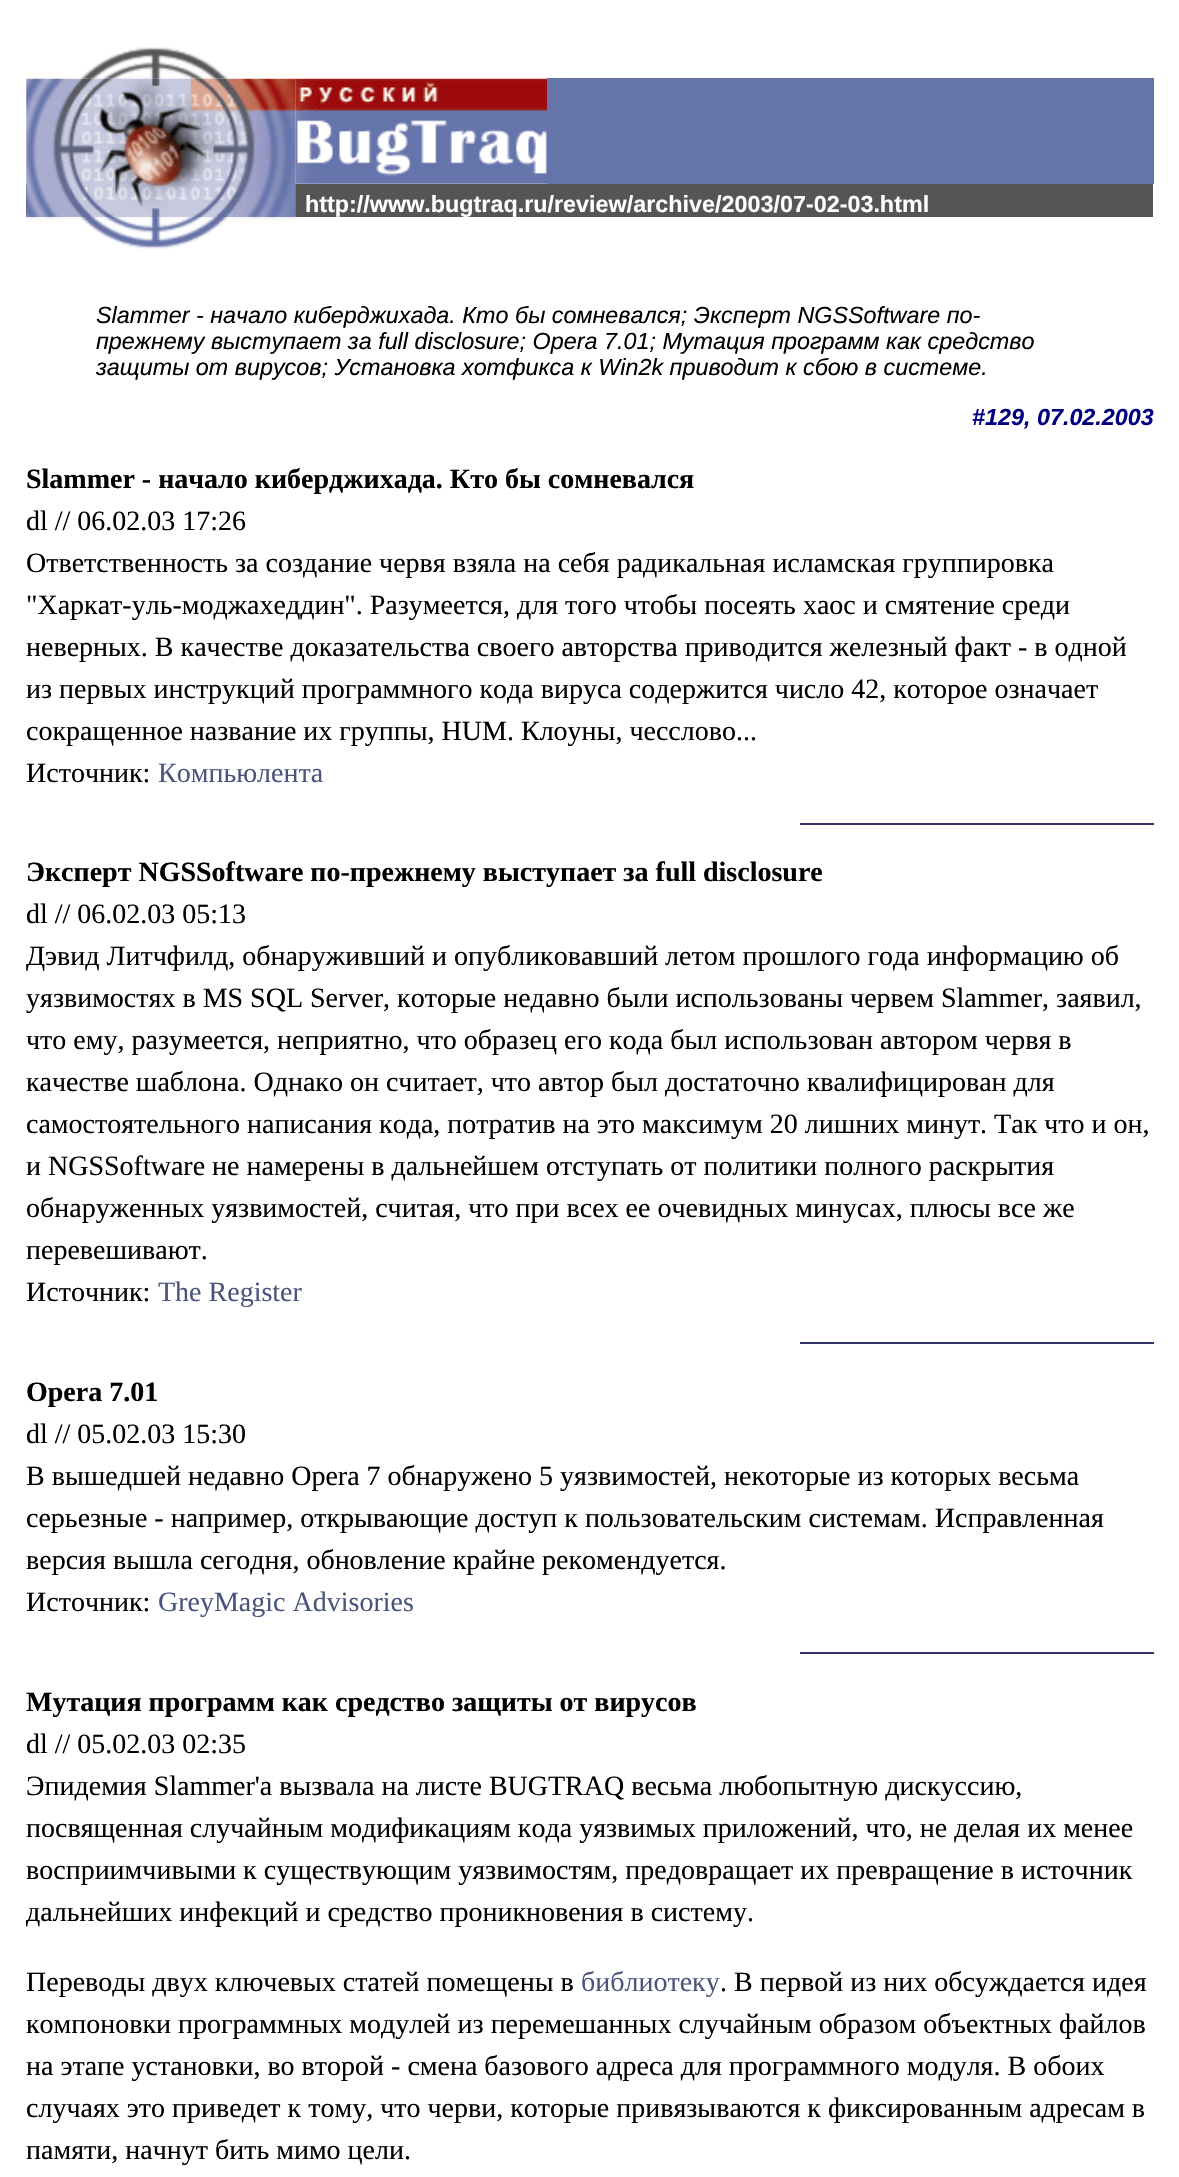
void draw(SkCanvas* canvas) {
  SkPaint paint;
  paint.setAntiAlias(true);
  auto face = [&](const char* family, int weight, float size, bool italic = false) {
    SkFontStyle style(weight, SkFontStyle::kNormal_Width,
      italic ? SkFontStyle::kItalic_Slant : SkFontStyle::kUpright_Slant);
    SkFont result(fontMgr->matchFamilyStyle(family, style), size);
    result.setSubpixel(true);
    return result;
  };
  auto paste = [&](const char* path, float x, float y, float w, float h) {
    auto image = SkImages::DeferredFromEncodedData(SkData::MakeFromFileName(path));
    canvas->drawImageRect(image, SkRect::MakeXYWH(x, y, w, h), SkSamplingOptions());
  };
  canvas->clear(0xffffffff);
  paste("img/1.png", 80, 47, 148, 32);
  paint.setColor(0xff555555);
  canvas->drawRect(SkRect::MakeXYWH(26, 184, 1127, 33), paint);
  paste("img/2.png", 26, 78, 270, 139);
  paste("img/3.png", 26, 217, 270, 32);
  paste("img/4.png", 295, 78, 252, 106);
  {
    const struct { float x, y, w, h; SkColor color; } items[] = {
      {547, 78, 607, 106, 0xff6574ab},
      {800, 823, 354, 2, 0xff32326c},
      {800, 1342, 354, 2, 0xff32326c},
      {800, 1652, 354, 2, 0xff32326c},
    };
    for (auto [x, y, w, h, color] : items) {
      paint.setColor(color);
      canvas->drawRect(SkRect::MakeXYWH(x, y, w, h), paint);
    }
  }
  auto f0 = face("Liberation Sans", 700, 23.35f);
  paint.setColor(0xffffffff);
  canvas->drawString("http://www.bugtraq.ru/review/archive/2003/07-02-03.html", 305, 212, f0, paint);
  auto f1 = face("Liberation Sans", 400, 23.35f, true);
  paint.setColor(0xff000000);
  {
    const struct { const char* s; float x, y; } items[] = {
      {"Slammer - начало киберджихада. Кто бы сомневался; Эксперт NGSSoftware по-", 96, 323},
      {"прежнему выступает за full disclosure; Opera 7.01; Мутация программ как средство", 96, 349},
      {"защиты от вирусов; Установка хотфикса к Win2k приводит к сбою в системе.", 96, 375},
    };
    for (auto [s, x, y] : items) {
      canvas->drawString(s, x, y, f1, paint);
    }
  }
  auto f2 = face("Liberation Sans", 700, 23.35f, true);
  paint.setColor(0xff000080);
  canvas->drawString("#129, 07.02.2003", 972, 425, f2, paint);
  auto f3 = face("Liberation Serif", 700, 28);
  paint.setColor(0xff000000);
  canvas->drawString("Slammer - начало киберджихада. Кто бы сомневался", 26, 488, f3, paint);
  auto f4 = face("Liberation Serif", 400, 28);
  {
    const struct { const char* s; float x, y; } items[] = {
      {"dl // 06.02.03 17:26", 26, 530},
      {"Ответственность за создание червя взяла на себя радикальная исламская группировка", 26, 572},
      {"\"Харкат-уль-моджахеддин\". Разумеется, для того чтобы посеять хаос и смятение среди", 26, 614},
      {"неверных. В качестве доказательства своего авторства приводится железный факт - в одной", 26, 656},
      {"из первых инструкций программного кода вируса содержится число 42, которое означает", 26, 698},
      {"сокращенное название их группы, HUM. Клоуны, чесслово...", 26, 740},
      {"Источник:", 26, 782},
    };
    for (auto [s, x, y] : items) {
      canvas->drawString(s, x, y, f4, paint);
    }
  }
  paint.setColor(0xff4a557e);
  canvas->drawString("Компьюлента", 158, 782, f4, paint);
  paint.setColor(0xff000000);
  canvas->drawString("Эксперт NGSSoftware по-прежнему выступает за full disclosure", 26, 881, f3, paint);
  {
    const struct { const char* s; float x, y; } items[] = {
      {"dl // 06.02.03 05:13", 26, 923},
      {"Дэвид Литчфилд, обнаруживший и опубликовавший летом прошлого года информацию об", 26, 965},
      {"уязвимостях в MS SQL Server, которые недавно были использованы червем Slammer, заявил,", 26, 1007},
      {"что ему, разумеется, неприятно, что образец его кода был использован автором червя в", 26, 1049},
      {"качестве шаблона. Однако он считает, что автор был достаточно квалифицирован для", 26, 1091},
      {"самостоятельного написания кода, потратив на это максимум 20 лишних минут. Так что и он,", 26, 1133},
      {"и NGSSoftware не намерены в дальнейшем отступать от политики полного раскрытия", 26, 1175},
      {"обнаруженных уязвимостей, считая, что при всех ее очевидных минусах, плюсы все же", 26, 1217},
      {"перевешивают.", 26, 1259},
      {"Источник:", 26, 1301},
    };
    for (auto [s, x, y] : items) {
      canvas->drawString(s, x, y, f4, paint);
    }
  }
  paint.setColor(0xff4a557e);
  canvas->drawString("The Register", 158, 1301, f4, paint);
  paint.setColor(0xff000000);
  canvas->drawString("Opera 7.01", 26, 1401, f3, paint);
  {
    const struct { const char* s; float x, y; } items[] = {
      {"dl // 05.02.03 15:30", 26, 1443},
      {"В вышедшей недавно Opera 7 обнаружено 5 уязвимостей, некоторые из которых весьма", 26, 1485},
      {"серьезные - например, открывающие доступ к пользовательским системам. Исправленная", 26, 1527},
      {"версия вышла сегодня, обновление крайне рекомендуется.", 26, 1569},
      {"Источник:", 26, 1611},
    };
    for (auto [s, x, y] : items) {
      canvas->drawString(s, x, y, f4, paint);
    }
  }
  paint.setColor(0xff4a557e);
  canvas->drawString("GreyMagic Advisories", 158, 1611, f4, paint);
  paint.setColor(0xff000000);
  canvas->drawString("Мутация программ как средство защиты от вирусов", 26, 1711, f3, paint);
  {
    const struct { const char* s; float x, y; } items[] = {
      {"dl // 05.02.03 02:35", 26, 1753},
      {"Эпидемия Slammer'а вызвала на листе BUGTRAQ весьма любопытную дискуссию,", 26, 1795},
      {"посвященная случайным модификациям кода уязвимых приложений, что, не делая их менее", 26, 1837},
      {"восприимчивыми к существующим уязвимостям, предовращает их превращение в источник", 26, 1879},
      {"дальнейших инфекций и средство проникновения в систему.", 26, 1921},
      {"Переводы двух ключевых статей помещены в", 26, 1991},
    };
    for (auto [s, x, y] : items) {
      canvas->drawString(s, x, y, f4, paint);
    }
  }
  paint.setColor(0xff4a557e);
  canvas->drawString("библиотеку", 581, 1991, f4, paint);
  paint.setColor(0xff000000);
  {
    const struct { const char* s; float x, y; } items[] = {
      {". В первой из них обсуждается идея", 720, 1991},
      {"компоновки программных модулей из перемешанных случайным образом объектных файлов", 26, 2033},
      {"на этапе установки, во второй - смена базового адреса для программного модуля. В обоих", 26, 2075},
      {"случаях это приведет к тому, что черви, которые привязываются к фиксированным адресам в", 26, 2117},
      {"памяти, начнут бить мимо цели.", 26, 2159},
    };
    for (auto [s, x, y] : items) {
      canvas->drawString(s, x, y, f4, paint);
    }
  }
}
